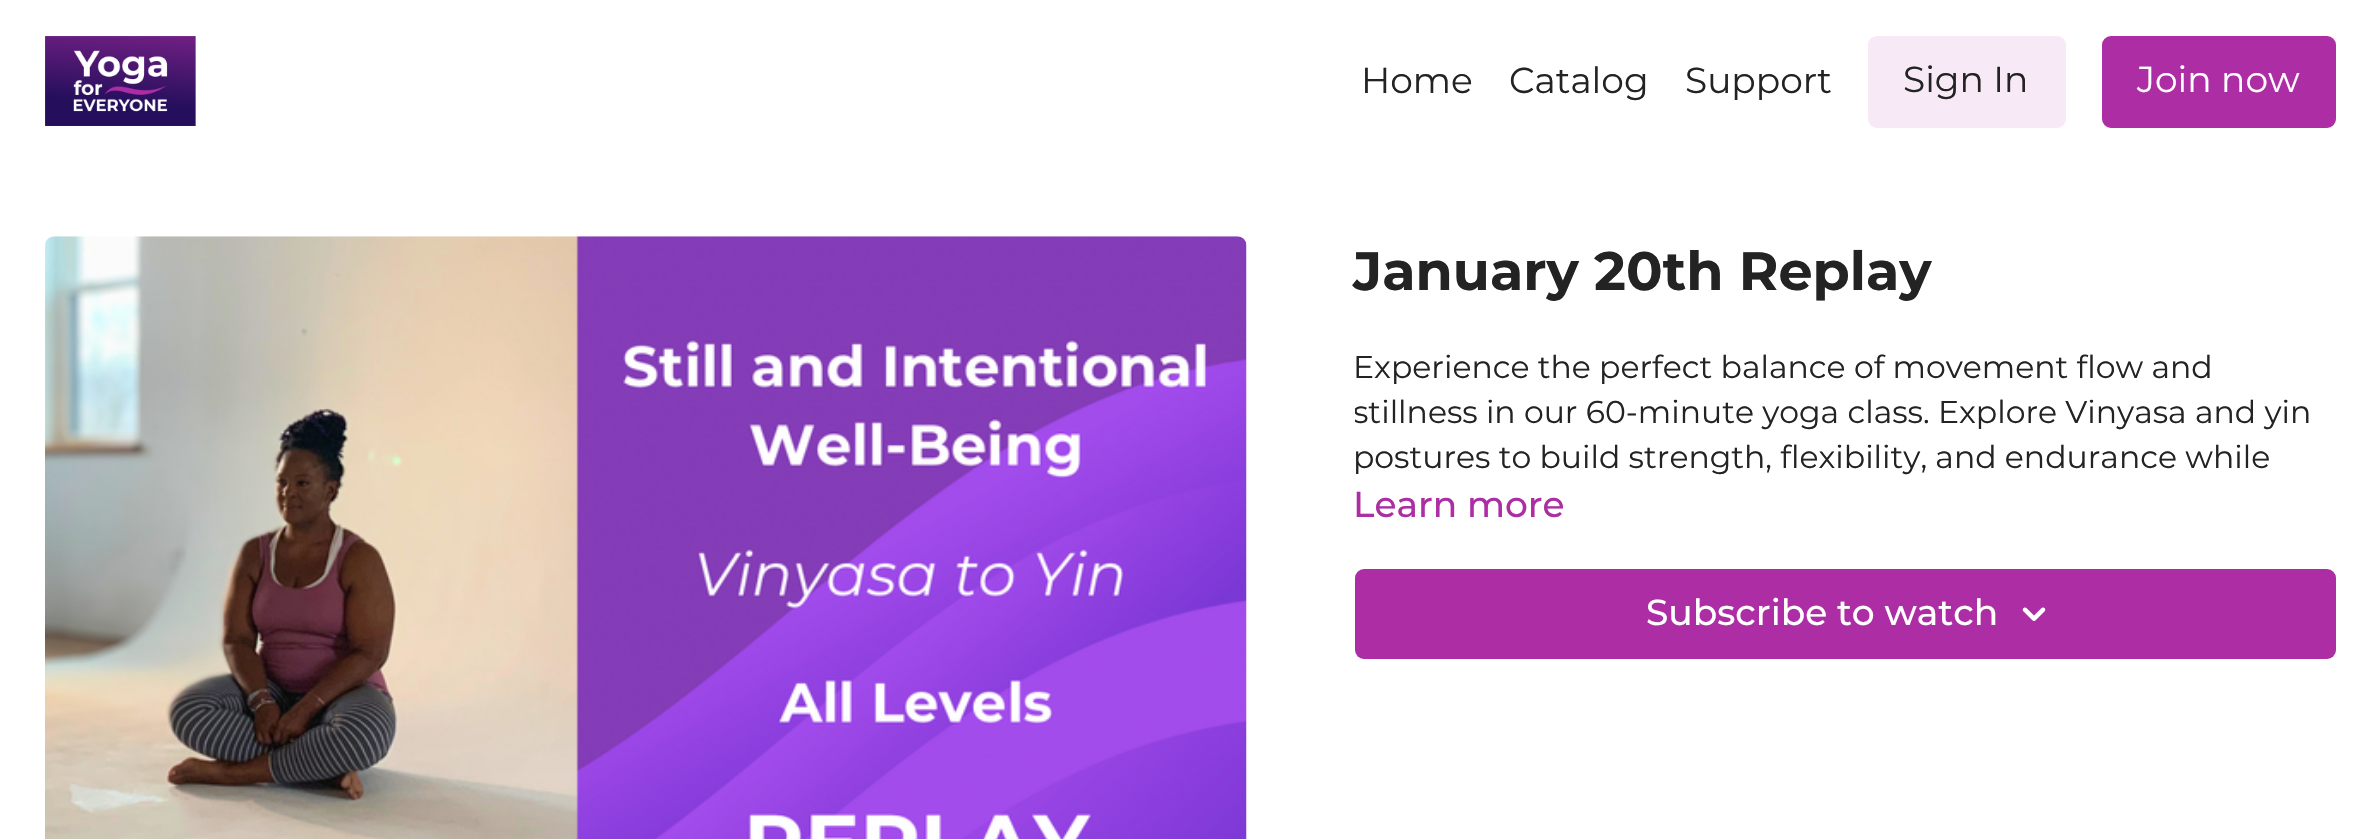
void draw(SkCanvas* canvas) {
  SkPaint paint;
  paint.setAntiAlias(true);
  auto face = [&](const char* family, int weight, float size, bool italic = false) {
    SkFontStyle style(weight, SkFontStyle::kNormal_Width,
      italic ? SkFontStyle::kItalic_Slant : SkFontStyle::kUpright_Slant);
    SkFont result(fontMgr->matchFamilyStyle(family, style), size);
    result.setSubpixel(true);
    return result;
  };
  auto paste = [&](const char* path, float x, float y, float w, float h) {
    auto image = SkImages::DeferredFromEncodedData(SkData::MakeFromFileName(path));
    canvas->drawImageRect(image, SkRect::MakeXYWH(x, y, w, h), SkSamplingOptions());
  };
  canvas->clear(0xffffffff);
  paste("img/1.png", 45, 36, 151, 90);
  paint.setColor(0xfff7eaf6);
  canvas->drawRoundRect(SkRect::MakeXYWH(1869, 37, 196, 90), 8, 8, paint);
  paint.setStroke(true);
  paint.setStrokeWidth(2);
  canvas->drawRoundRect(SkRect::MakeXYWH(1869, 37, 196, 90), 8, 8, paint);
  paint.setStroke(false);
  paint.setColor(0xffad2da4);
  canvas->drawRoundRect(SkRect::MakeXYWH(2103, 37, 232, 90), 8, 8, paint);
  paint.setStroke(true);
  canvas->drawRoundRect(SkRect::MakeXYWH(2103, 37, 232, 90), 8, 8, paint);
  paste("img/2.png", 45, 236, 1202, 603);
  paint.setStroke(false);
  canvas->drawRoundRect(SkRect::MakeXYWH(1355, 569, 981, 90), 9, 9, paint);
  paste("img/3.png", 2022, 607, 24, 14);
  auto f0 = face("Montserrat", 400, 36);
  paint.setColor(0xff232323);
  {
    const struct { const char* s; float x, y; } items[] = {
      {"Home", 1361, 93},
      {"Catalog", 1509, 93},
      {"Support", 1685, 93},
      {"Sign In", 1903, 92},
    };
    for (auto [s, x, y] : items) {
      canvas->drawString(s, x, y, f0, paint);
    }
  }
  paint.setColor(0xffffffff);
  canvas->drawString("Join now", 2137, 92, f0, paint);
  auto f1 = face("Montserrat", 700, 54);
  paint.setColor(0xff232323);
  canvas->drawString("January 20th Replay", 1353, 290, f1, paint);
  auto f2 = face("Montserrat", 400, 31.5f);
  canvas->drawString("Experience the perfect balance of movement flow and", 1353, 378, f2, paint);
  canvas->save();
  canvas->clipRect(SkRect::MakeXYWH(1355, 344, 981, 135));
  canvas->drawString("stillness in our 60-minute yoga class. Explore Vinyasa and yin", 1353, 423, f2, paint);
  canvas->restore();
  canvas->drawString("postures to build strength, flexibility, and endurance while", 1353, 468, f2, paint);
  auto f3 = face("Montserrat", 500, 36);
  paint.setColor(0xffad2da4);
  canvas->drawString("Learn more", 1353, 517, f3, paint);
  paint.setColor(0xffffffff);
  canvas->drawString("Subscribe to watch", 1646, 625, f3, paint);
}
